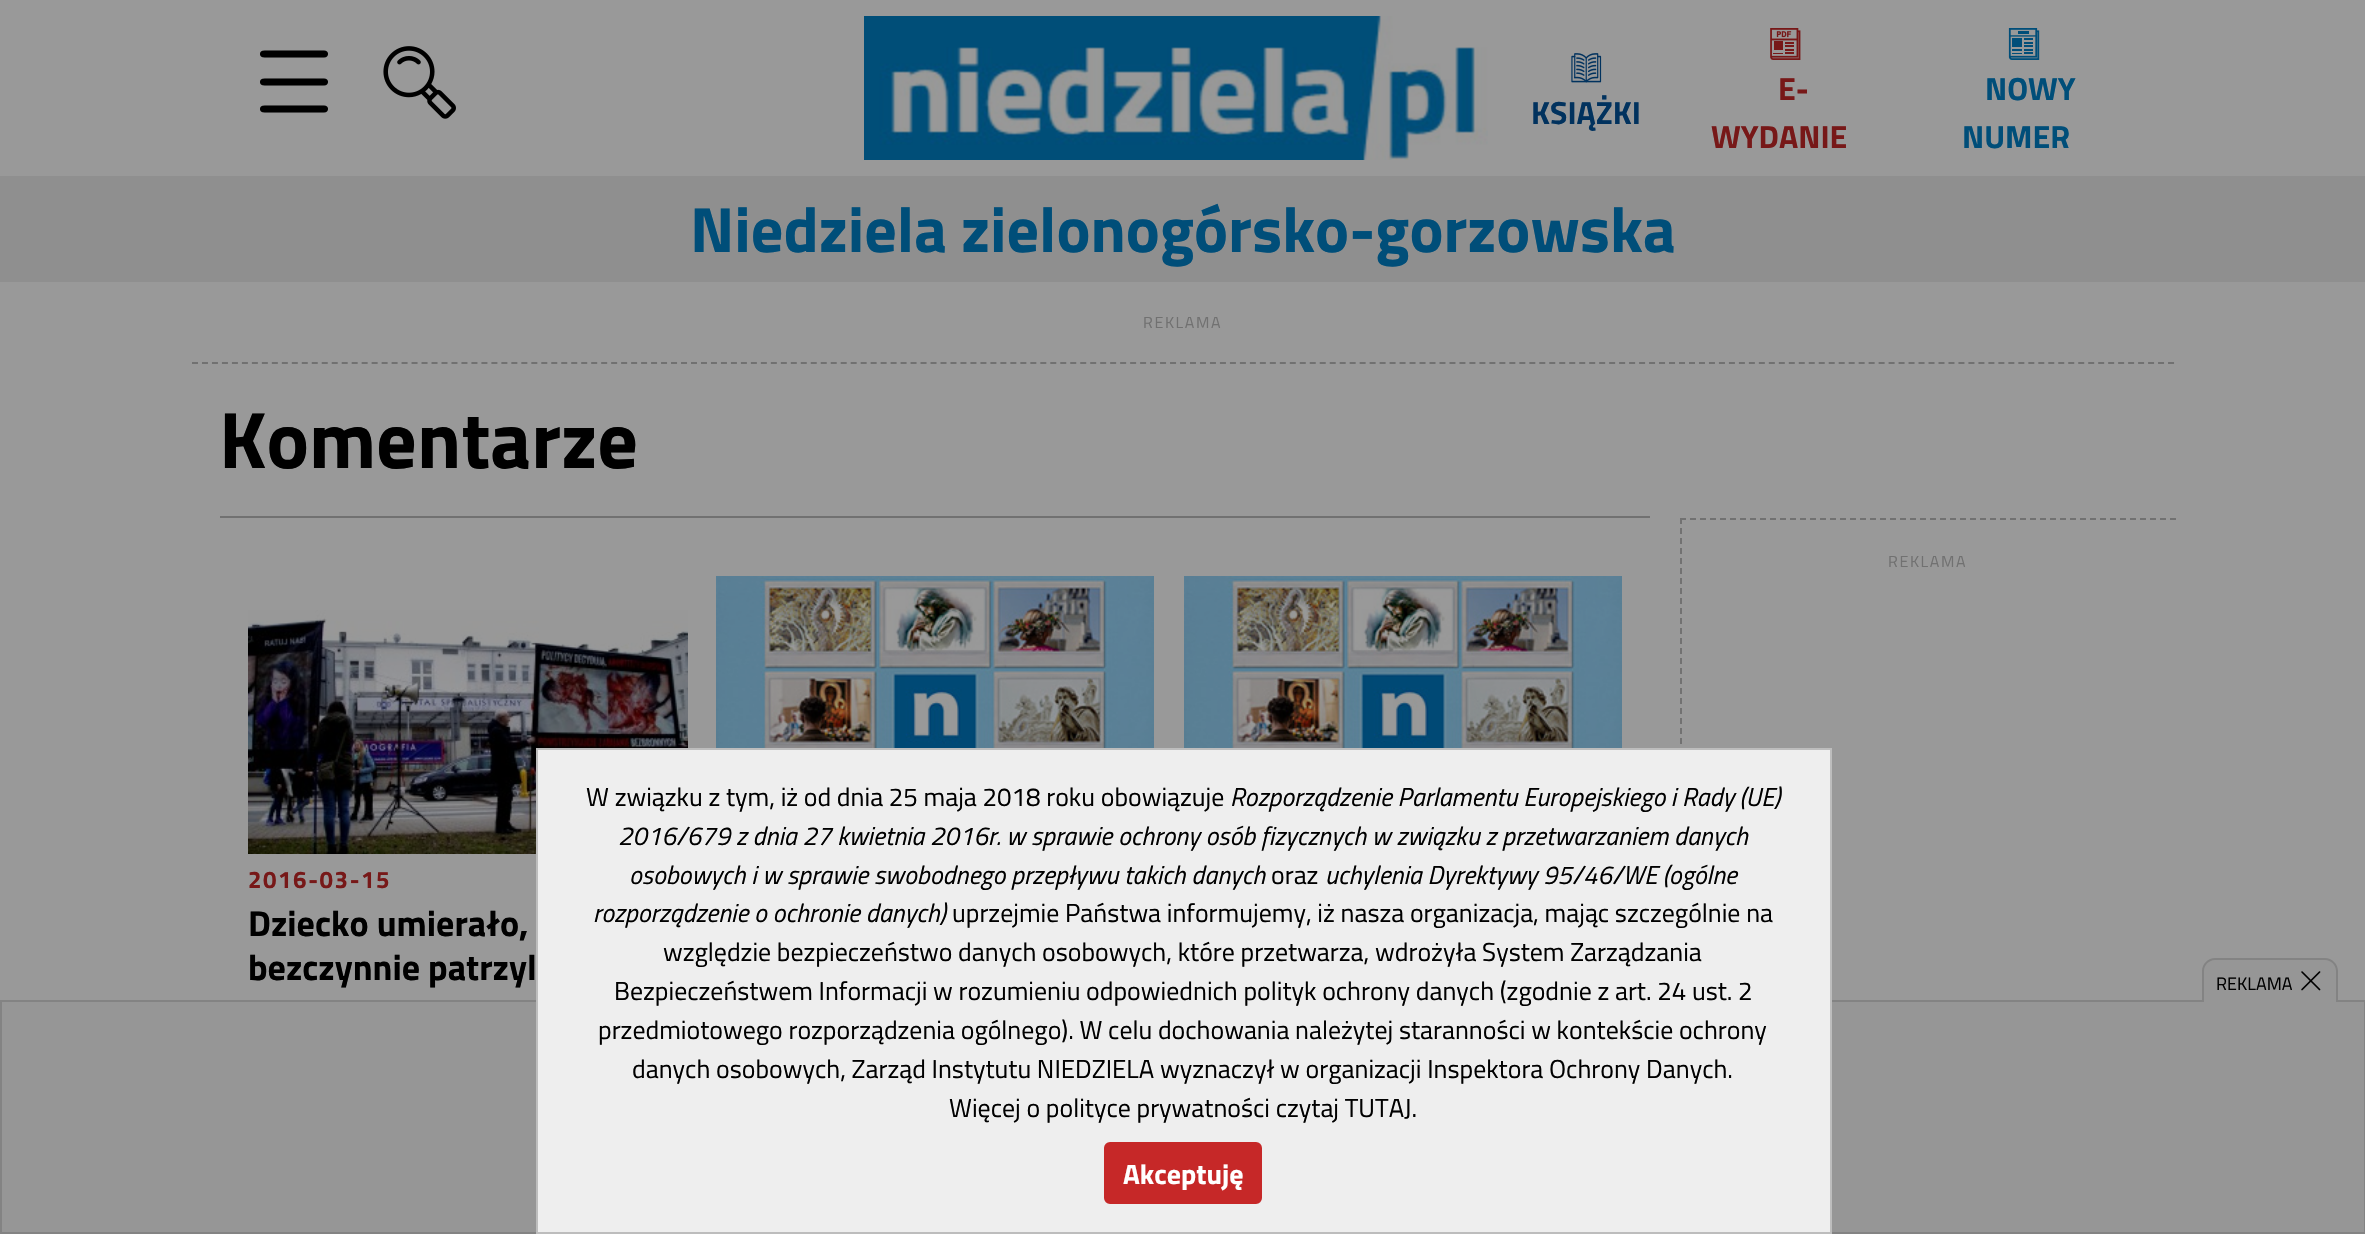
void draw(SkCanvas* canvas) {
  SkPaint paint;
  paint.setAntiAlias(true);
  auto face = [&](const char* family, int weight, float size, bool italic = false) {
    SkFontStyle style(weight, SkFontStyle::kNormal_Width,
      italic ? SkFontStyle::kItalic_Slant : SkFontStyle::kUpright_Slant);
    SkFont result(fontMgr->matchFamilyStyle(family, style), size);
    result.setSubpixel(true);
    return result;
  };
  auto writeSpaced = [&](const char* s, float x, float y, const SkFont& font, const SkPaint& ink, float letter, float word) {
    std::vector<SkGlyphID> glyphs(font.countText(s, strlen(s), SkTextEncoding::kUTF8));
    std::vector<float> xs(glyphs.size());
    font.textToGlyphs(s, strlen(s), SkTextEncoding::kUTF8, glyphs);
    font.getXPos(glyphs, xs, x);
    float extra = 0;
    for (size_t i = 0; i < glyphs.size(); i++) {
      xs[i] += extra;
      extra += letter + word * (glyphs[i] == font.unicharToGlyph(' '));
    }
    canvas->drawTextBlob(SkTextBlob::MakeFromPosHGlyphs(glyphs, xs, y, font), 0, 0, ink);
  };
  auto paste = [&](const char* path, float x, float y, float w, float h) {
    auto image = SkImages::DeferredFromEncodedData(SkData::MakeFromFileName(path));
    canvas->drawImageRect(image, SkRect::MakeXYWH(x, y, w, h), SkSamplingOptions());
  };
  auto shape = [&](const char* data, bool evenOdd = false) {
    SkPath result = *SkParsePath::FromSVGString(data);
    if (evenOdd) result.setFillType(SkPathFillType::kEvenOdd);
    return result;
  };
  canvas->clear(0xff999999);
  paste("img/1.png", 260, 50, 68, 63);
  paste("img/2.png", 383, 46, 73, 73);
  paste("img/3.png", 864, 16, 624, 144);
  paste("img/4.png", 1571, 53, 31, 30);
  paste("img/5.png", 1770, 28, 31, 32);
  paste("img/6.png", 2008, 28, 32, 32);
  paint.setColor(0xff8f8f8f);
  canvas->drawRect(SkRect::MakeXYWH(0, 176, 2365, 106), paint);
  paint.setStroke(true);
  paint.setStrokeWidth(2);
  paint.setColor(0xff717171);
  paint.setPathEffect(SkDashPathEffect::Make({{6, 3.98f}}, 0));
  canvas->drawPath(shape("M192 363H2176"), paint);
  paint.setPathEffect(nullptr);
  paint.setStroke(false);
  canvas->drawRect(SkRect::MakeXYWH(220, 516, 1430, 2), paint);
  paint.setStroke(true);
  paint.setPathEffect(SkDashPathEffect::Make({{6, 4}}, 0));
  canvas->drawPath(shape("M1680 519H2176"), paint);
  paint.setPathEffect(nullptr);
  paint.setPathEffect(SkDashPathEffect::Make({{6, 4}}, 0));
  canvas->drawPath(shape("M1681 518V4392"), paint);
  paint.setPathEffect(nullptr);
  paste("img/7.png", 716, 576, 438, 172);
  paste("img/7.png", 1184, 576, 438, 172);
  paste("img/8.png", 248, 610, 440, 244);
  paint.setStroke(false);
  paint.setColor(0xff969696);
  canvas->drawRect(SkRect::MakeXYWH(1, 1001, 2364, 232), paint);
  paint.setStroke(true);
  paint.setColor(0xff838383);
  canvas->drawRect(SkRect::MakeXYWH(1, 1001, 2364, 232), paint);
  paint.setStroke(false);
  paint.setColor(0xff969696);
  canvas->drawPath(shape("M2214 960H2326C2331.5 960 2336 964.5 2336 970V1002H2204V970C2204 964.5 2208.5 960 2214 960Z"), paint);
  paint.setColor(0xff838383);
  canvas->drawPath(shape("M2215 958H2325C2332 958 2338 964 2338 971V1002H2202V971C2202 964 2208 958 2215 958ZM2215 960H2325C2331 960 2336 965 2336 971V1002H2204V971C2204 965 2209 960 2215 960Z", true), paint);
  paste("img/9.png", 2301, 971, 20, 20);
  paint.setColor(0xffeeeeee);
  canvas->drawRect(SkRect::MakeXYWH(537, 749, 1294, 484), paint);
  paint.setStroke(true);
  paint.setColor(0xffbdbdbd);
  canvas->drawRect(SkRect::MakeXYWH(537, 749, 1294, 484), paint);
  paint.setStroke(false);
  paint.setColor(0xffc62828);
  canvas->drawRoundRect(SkRect::MakeXYWH(1105, 1143, 156, 60), 5, 5, paint);
  paint.setStroke(true);
  canvas->drawRoundRect(SkRect::MakeXYWH(1105, 1143, 156, 60), 5, 5, paint);
  auto f0 = face("Titillium Web", 700, 32);
  paint.setStroke(false);
  paint.setColor(0xff01325e);
  canvas->drawString("KSIĄŻKI", 1531, 124, f0, paint);
  paint.setColor(0xff771818);
  canvas->drawString("E-", 1778, 100, f0, paint);
  canvas->drawString("WYDANIE", 1711, 148, f0, paint);
  paint.setColor(0xff004e79);
  canvas->drawString("NOWY", 1985, 100, f0, paint);
  canvas->drawString("NUMER", 1962, 148, f0, paint);
  auto f1 = face("Titillium Web", 700, 64);
  canvas->drawString("Niedziela zielonogórsko-gorzowska", 690, 252, f1, paint);
  auto f2 = face("Titillium Web", 400, 16);
  paint.setColor(0xff717171);
  writeSpaced("REKLAMA", 1143, 328, f2, paint, 1.6f, 0);
  auto f3 = face("Titillium Web", 700, 80);
  paint.setColor(0xff000000);
  canvas->drawString("Komentarze", 219, 468, f3, paint);
  paint.setColor(0xff717171);
  writeSpaced("REKLAMA", 1888, 567, f2, paint, 1.6f, 0);
  auto f4 = face("Titillium Web", 700, 24);
  paint.setColor(0xff771818);
  writeSpaced("2016-03-15", 248, 888, f4, paint, 1.6f, 0);
  auto f5 = face("Titillium Web", 700, 36);
  paint.setColor(0xff000000);
  canvas->drawString("Dziecko umierało,", 248, 936, f5, paint);
  canvas->drawString("bezczynnie patrzyl", 248, 980, f5, paint);
  auto f6 = face("Titillium Web", 400, 18);
  canvas->drawString("REKLAMA", 2216, 990, f6, paint);
  auto f7 = face("Titillium Web", 400, 25.9f);
  canvas->drawString("W związku z tym, iż od dnia 25 maja 2018 roku obowiązuje", 586, 806, f7, paint);
  auto f8 = face("Titillium Web", 400, 25.9f, true);
  {
    const struct { const char* s; float x, y; } items[] = {
      {"Rozporządzenie Parlamentu Europejskiego i Rady (UE)", 1230, 806},
      {"2016/679 z dnia 27 kwietnia 2016r. w sprawie ochrony osób fizycznych w związku z przetwarzaniem danych", 618, 845},
      {"osobowych i w sprawie swobodnego przepływu takich danych", 629, 884},
    };
    for (auto [s, x, y] : items) {
      canvas->drawString(s, x, y, f8, paint);
    }
  }
  canvas->drawString("oraz", 1271, 884, f7, paint);
  canvas->drawString("uchylenia Dyrektywy 95/46/WE (ogólne", 1325, 884, f8, paint);
  canvas->drawString("rozporządzenie o ochronie danych)", 593, 922, f8, paint);
  {
    const struct { const char* s; float x, y; } items[] = {
      {"uprzejmie Państwa informujemy, iż nasza organizacja, mając szczególnie na", 952, 922},
      {"względzie bezpieczeństwo danych osobowych, które przetwarza, wdrożyła System Zarządzania", 663, 961},
      {"Bezpieczeństwem Informacji w rozumieniu odpowiednich polityk ochrony danych (zgodnie z art. 24 ust. 2", 614, 1000},
      {"przedmiotowego rozporządzenia ogólnego). W celu dochowania należytej staranności w kontekście ochrony", 598, 1039},
      {"danych osobowych, Zarząd Instytutu NIEDZIELA wyznaczył w organizacji Inspektora Ochrony Danych.", 632, 1078},
      {"Więcej o polityce prywatności czytaj TUTAJ.", 949, 1117},
    };
    for (auto [s, x, y] : items) {
      canvas->drawString(s, x, y, f7, paint);
    }
  }
  auto f9 = face("Titillium Web", 700, 28);
  paint.setColor(0xffffffff);
  canvas->drawString("Akceptuję", 1123, 1184, f9, paint);
}
